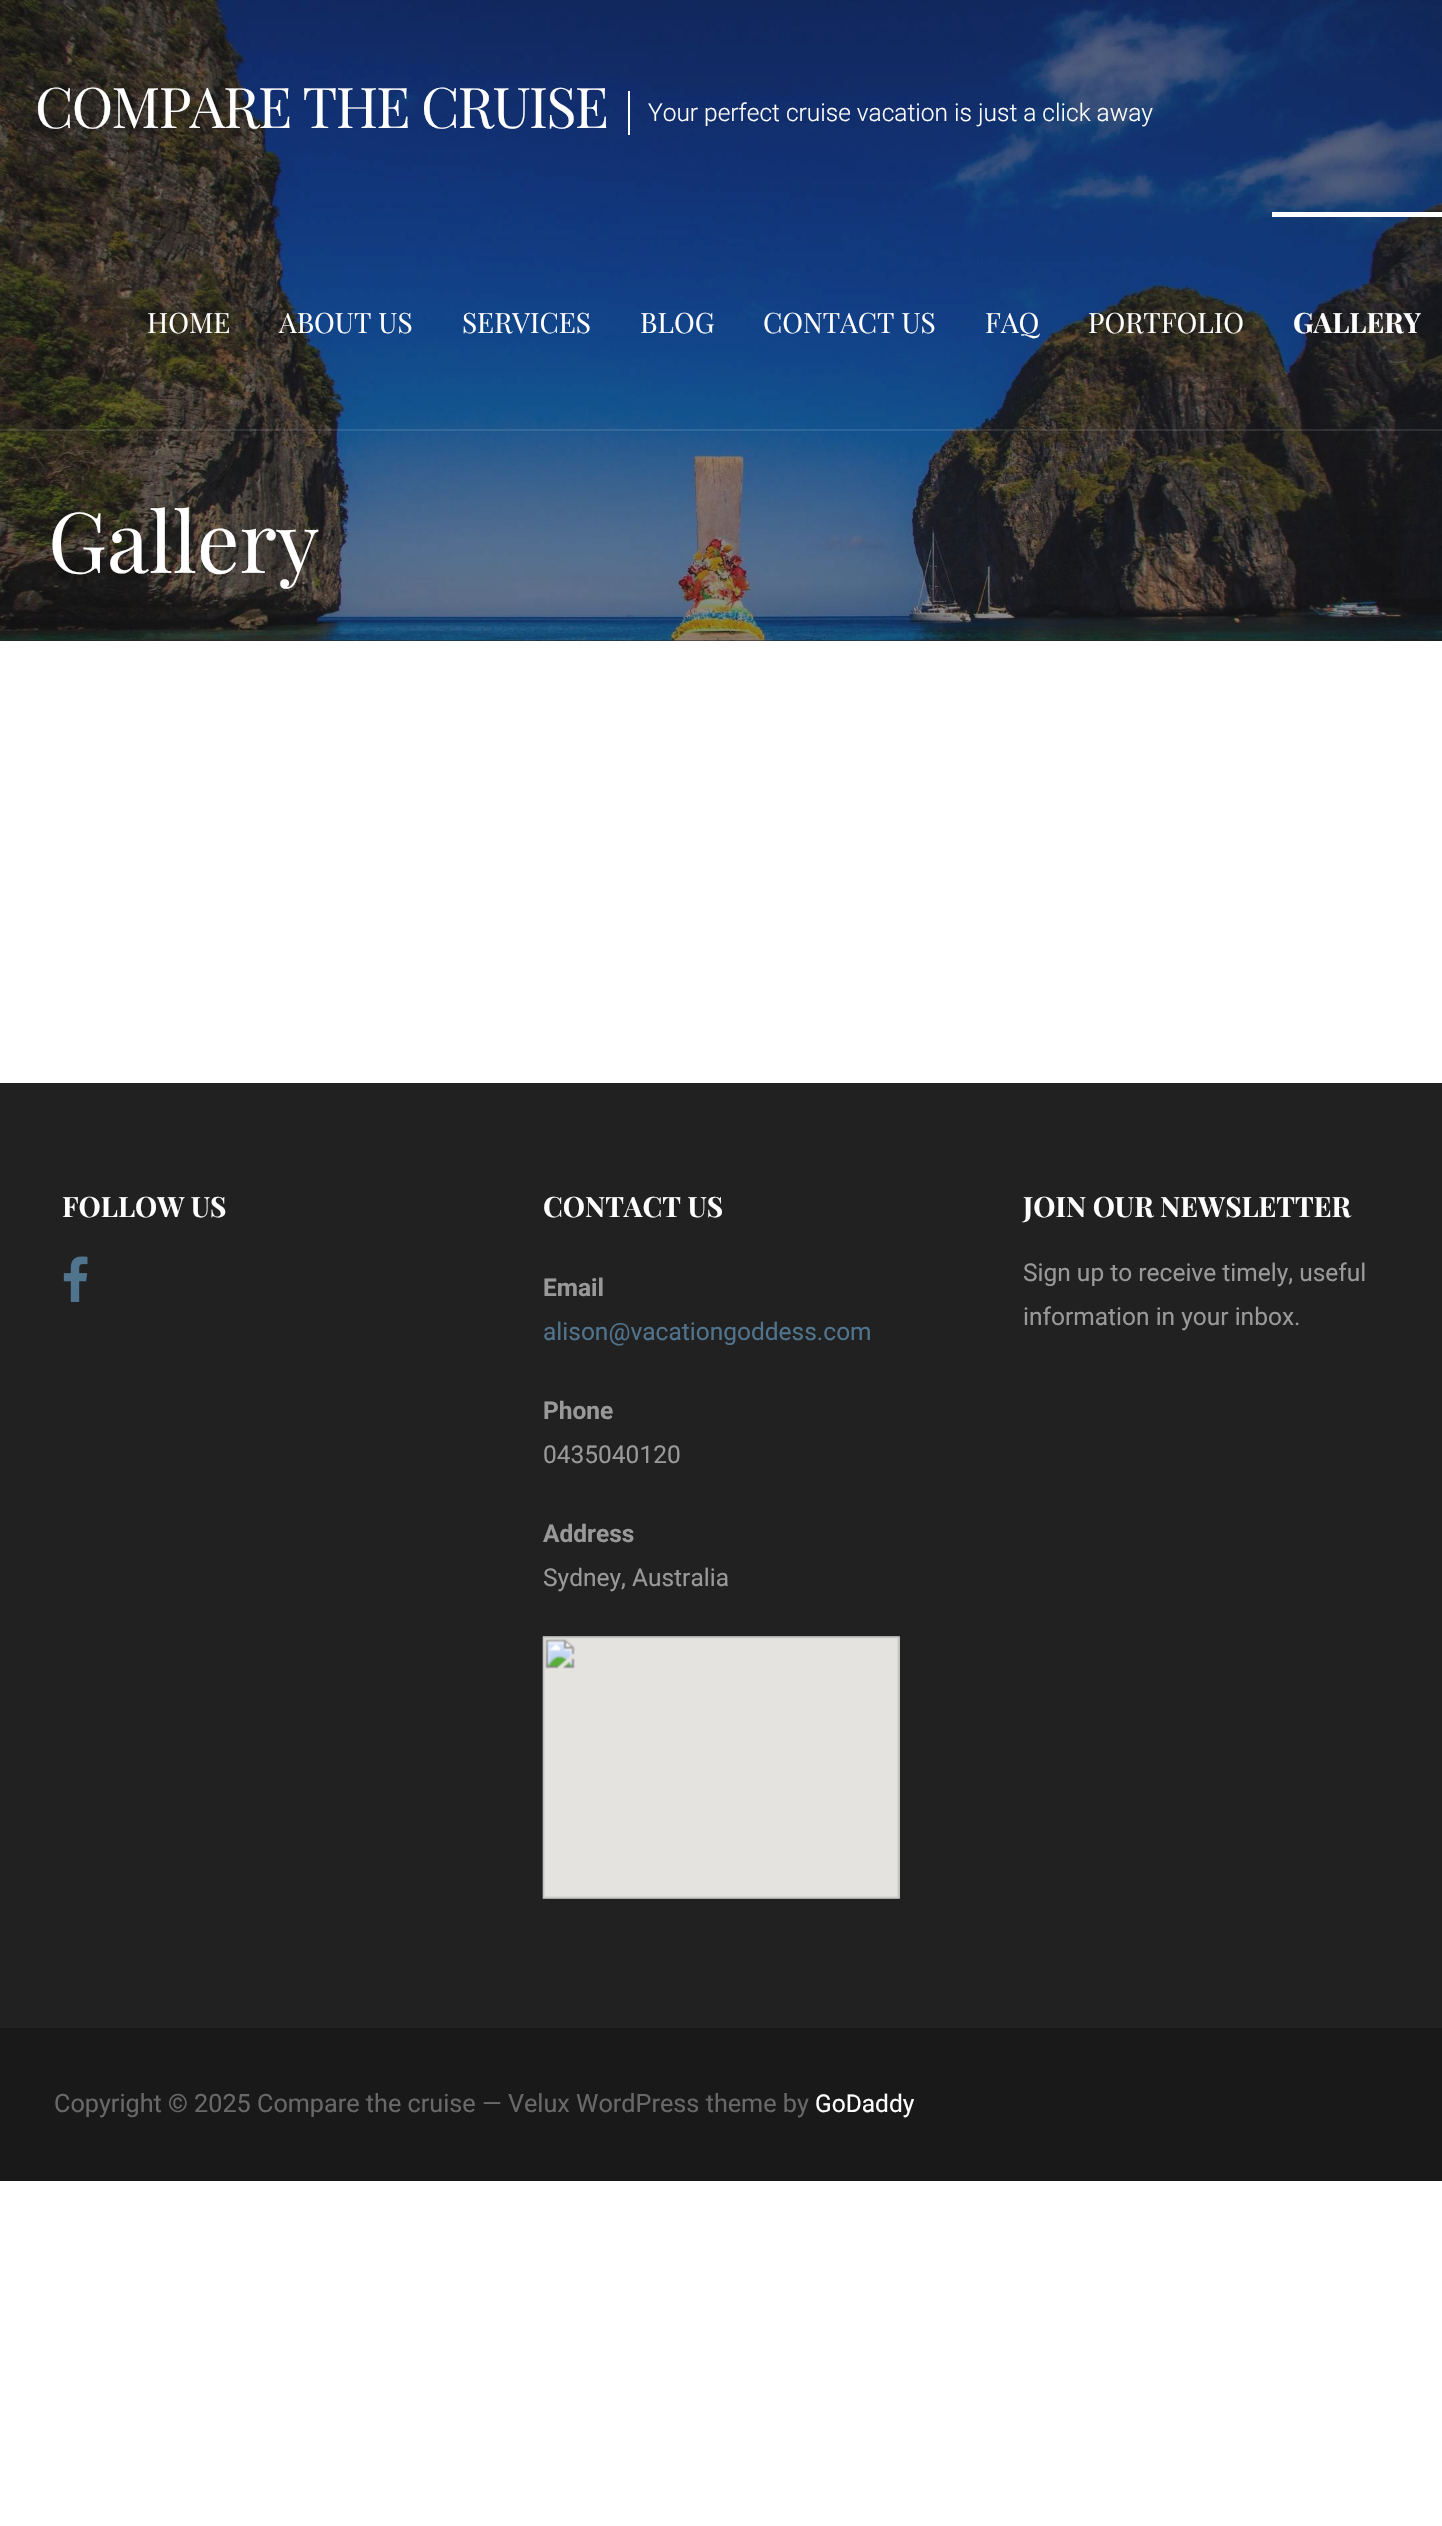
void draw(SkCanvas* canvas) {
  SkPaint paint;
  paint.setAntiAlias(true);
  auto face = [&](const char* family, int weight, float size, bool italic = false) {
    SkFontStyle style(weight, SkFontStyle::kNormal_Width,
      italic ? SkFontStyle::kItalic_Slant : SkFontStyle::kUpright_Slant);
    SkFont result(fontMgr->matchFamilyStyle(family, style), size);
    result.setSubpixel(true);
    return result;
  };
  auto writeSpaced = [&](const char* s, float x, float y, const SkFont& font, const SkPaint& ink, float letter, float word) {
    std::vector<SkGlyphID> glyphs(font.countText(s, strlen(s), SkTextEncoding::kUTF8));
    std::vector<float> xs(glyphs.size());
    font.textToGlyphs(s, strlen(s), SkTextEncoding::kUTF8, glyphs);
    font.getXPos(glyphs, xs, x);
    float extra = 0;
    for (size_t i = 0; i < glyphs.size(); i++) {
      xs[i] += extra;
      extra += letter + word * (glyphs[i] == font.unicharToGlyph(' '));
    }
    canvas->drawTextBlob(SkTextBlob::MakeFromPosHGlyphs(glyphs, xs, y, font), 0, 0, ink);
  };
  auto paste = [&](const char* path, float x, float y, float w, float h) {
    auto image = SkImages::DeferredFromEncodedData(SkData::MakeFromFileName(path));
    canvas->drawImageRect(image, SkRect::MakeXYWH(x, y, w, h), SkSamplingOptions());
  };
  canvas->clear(0xffffffff);
  paint.setColor(0xff212121);
  canvas->drawRect(SkRect::MakeXYWH(0, 640, 1442, 1), paint);
  paste("img/1.png", 0, 0, 1442, 641);
  {
    const struct { float x, y, w, h; SkColor color; } items[] = {
      {0, 429, 1442, 2, 0x1affffff},
      {628, 91, 2, 44, 0xffffffff},
      {1272, 212, 170, 5, 0xffffffff},
      {0, 1083, 1442, 945, 0xff212121},
    };
    for (auto [x, y, w, h, color] : items) {
      paint.setColor(color);
      canvas->drawRect(SkRect::MakeXYWH(x, y, w, h), paint);
    }
  }
  paste("img/2.png", 63, 1256, 25, 46);
  paste("img/3.png", 542, 1636, 358, 263);
  paint.setColor(0xff191919);
  canvas->drawRect(SkRect::MakeXYWH(0, 2028, 1442, 153), paint);
  auto f0 = face("Playfair Display", 400, 56);
  paint.setColor(0xffffffff);
  writeSpaced("COMPARE THE CRUISE", 35, 128, f0, paint, -1.7f, 0);
  auto f1 = face("Roboto", 300, 24.5f);
  canvas->drawString("Your perfect cruise vacation is just a click away", 648, 121, f1, paint);
  auto f2 = face("Playfair Display", 400, 28);
  {
    const struct { const char* s; float x, y; } items[] = {
      {"HOME", 147, 333},
      {"ABOUT US", 279, 333},
      {"SERVICES", 462, 333},
      {"BLOG", 640, 333},
      {"CONTACT US", 763, 333},
      {"FAQ", 985, 333},
      {"PORTFOLIO", 1088, 333},
    };
    for (auto [s, x, y] : items) {
      canvas->drawString(s, x, y, f2, paint);
    }
  }
  auto f3 = face("Playfair Display", 700, 28);
  canvas->drawString("GALLERY", 1293, 333, f3, paint);
  auto f4 = face("Playfair Display", 400, 84);
  canvas->drawString("Gallery", 48, 573, f4, paint);
  canvas->drawString("FOLLOW US", 62, 1217, f3, paint);
  canvas->drawString("CONTACT US", 543, 1217, f3, paint);
  auto f5 = face("Roboto", 700, 24.5f);
  paint.setColor(0xff999999);
  canvas->drawString("Email", 543, 1296, f5, paint);
  auto f6 = face("Roboto", 400, 24.5f);
  paint.setColor(0xff51748e);
  canvas->drawString("alison@vacationgoddess.com", 543, 1340, f6, paint);
  paint.setColor(0xff999999);
  canvas->drawString("Phone", 543, 1419, f5, paint);
  canvas->drawString("0435040120", 543, 1463, f6, paint);
  canvas->drawString("Address", 543, 1542, f5, paint);
  canvas->drawString("Sydney, Australia", 543, 1586, f6, paint);
  paint.setColor(0xffffffff);
  canvas->drawString("JOIN OUR NEWSLETTER", 1023, 1217, f3, paint);
  paint.setColor(0xff999999);
  canvas->drawString("Sign up to receive timely, useful", 1023, 1281, f6, paint);
  canvas->drawString("information in your inbox.", 1023, 1325, f6, paint);
  auto f7 = face("Roboto", 400, 25.2f);
  paint.setColor(0xff686868);
  canvas->drawString("Copyright © 2025 Compare the cruise — Velux WordPress theme by", 54, 2112, f7, paint);
  paint.setColor(0xffffffff);
  canvas->drawString("GoDaddy", 815, 2112, f6, paint);
}
